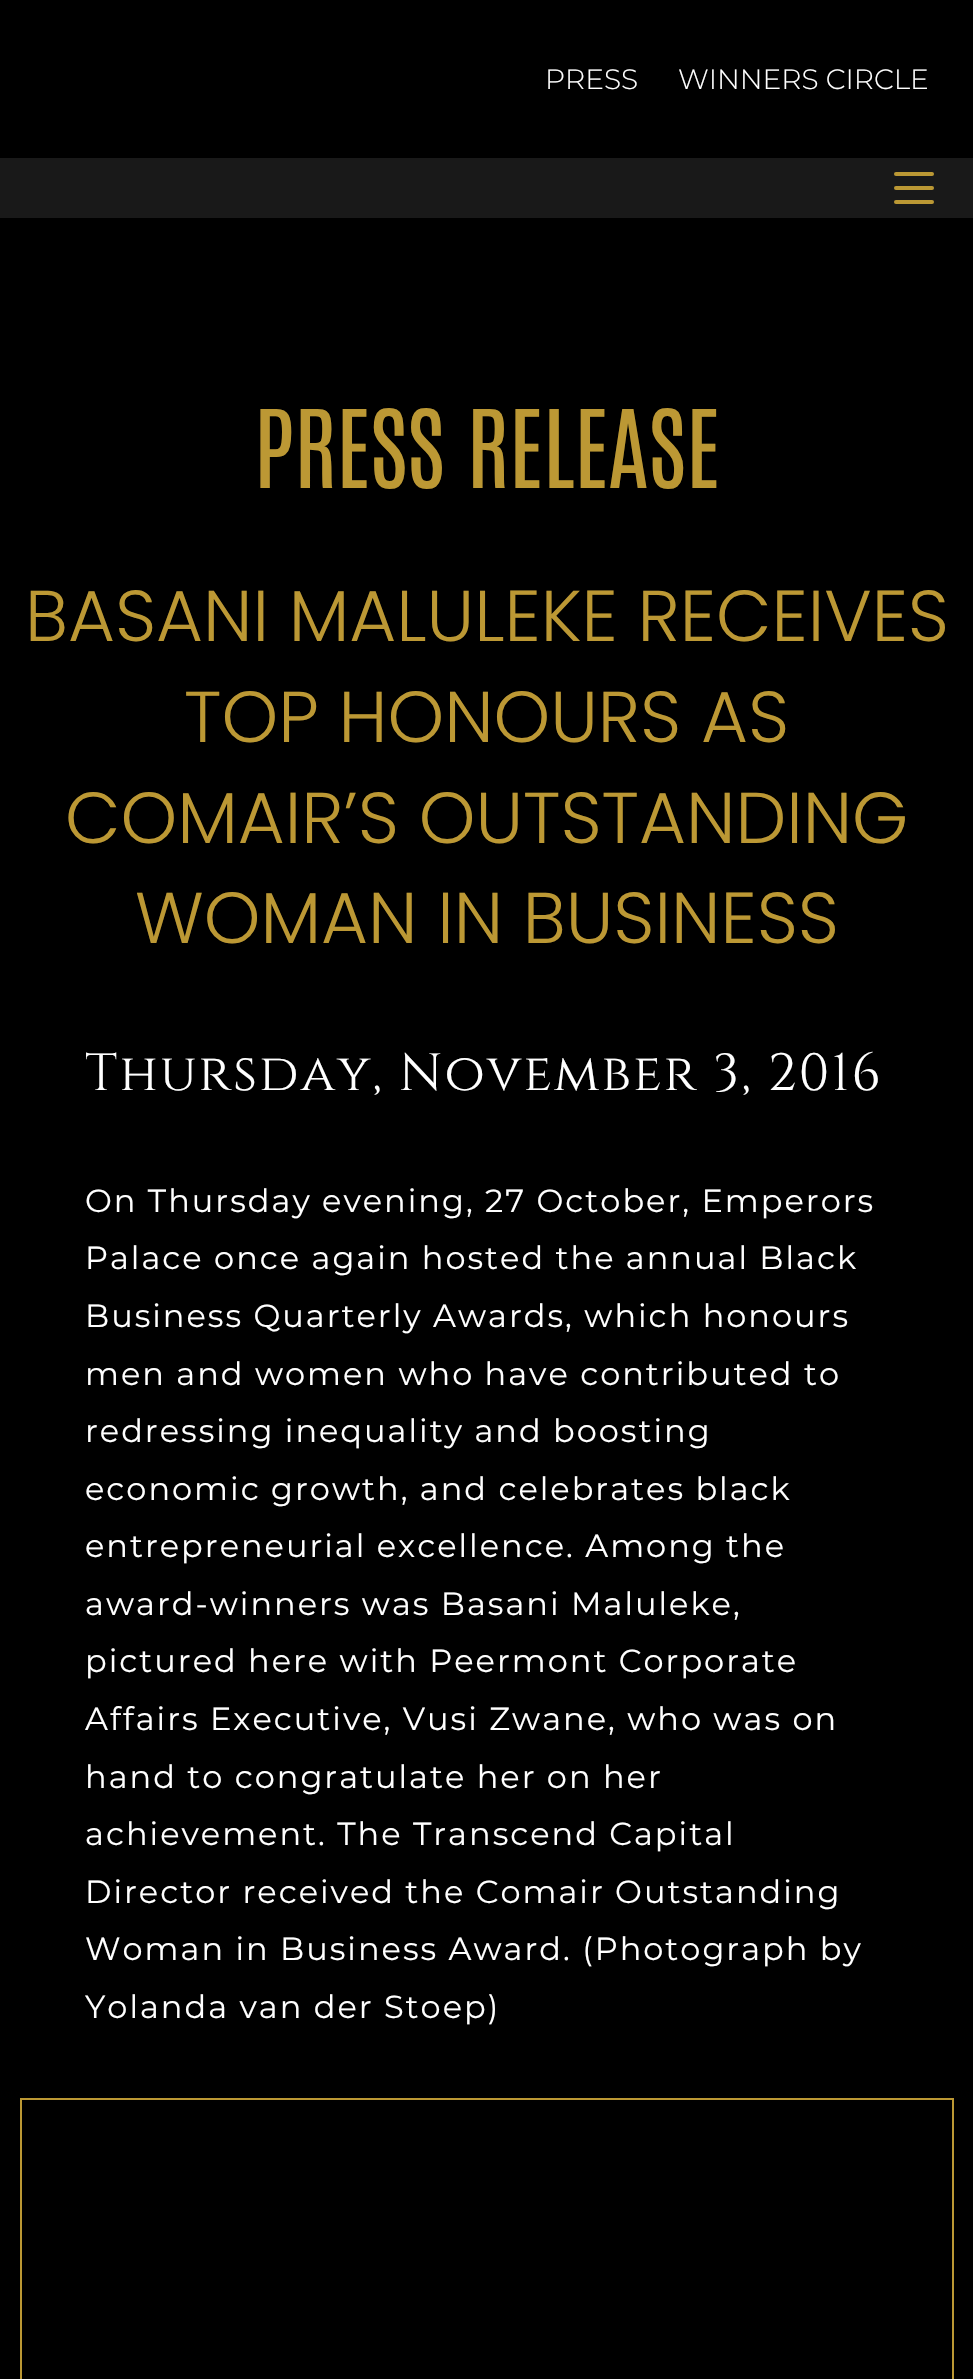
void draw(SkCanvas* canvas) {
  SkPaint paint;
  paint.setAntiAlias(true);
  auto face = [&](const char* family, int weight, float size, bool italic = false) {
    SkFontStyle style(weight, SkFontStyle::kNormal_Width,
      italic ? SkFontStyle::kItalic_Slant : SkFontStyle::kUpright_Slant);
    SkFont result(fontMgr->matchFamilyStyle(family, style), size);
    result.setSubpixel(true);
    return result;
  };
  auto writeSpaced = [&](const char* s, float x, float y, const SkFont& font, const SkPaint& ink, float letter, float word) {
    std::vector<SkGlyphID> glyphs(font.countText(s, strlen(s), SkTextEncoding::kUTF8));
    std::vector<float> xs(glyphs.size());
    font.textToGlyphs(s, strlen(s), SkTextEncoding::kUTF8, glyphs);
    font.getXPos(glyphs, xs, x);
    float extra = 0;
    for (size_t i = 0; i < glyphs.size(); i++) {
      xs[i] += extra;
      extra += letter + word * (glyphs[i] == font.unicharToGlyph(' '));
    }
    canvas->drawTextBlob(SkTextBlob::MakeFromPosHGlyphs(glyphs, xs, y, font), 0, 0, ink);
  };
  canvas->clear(0xff000000);
  paint.setColor(0xff191919);
  canvas->drawRect(SkRect::MakeXYWH(0, 158, 973, 60), paint);
  paint.setColor(0xffbb9834);
  canvas->drawRoundRect(SkRect::MakeXYWH(894, 172, 40, 4), 2, 2, paint);
  canvas->drawRoundRect(SkRect::MakeXYWH(894, 186, 40, 4), 2, 2, paint);
  canvas->drawRoundRect(SkRect::MakeXYWH(894, 200, 40, 4), 2, 2, paint);
  paint.setStroke(true);
  paint.setStrokeWidth(2);
  canvas->drawRect(SkRect::MakeXYWH(21, 2099, 932, 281), paint);
  auto f0 = face("Montserrat", 300, 28);
  paint.setStroke(false);
  paint.setColor(0xffffffff);
  canvas->drawString("PRESS", 545, 89, f0, paint);
  canvas->drawString("WINNERS CIRCLE", 678, 89, f0, paint);
  auto f1 = face("Antonio", 400, 92);
  paint.setColor(0xffbc9834);
  canvas->drawString("PRESS RELEASE", 254, 488, f1, paint);
  auto f2 = face("Poppins", 300, 72);
  {
    const struct { const char* s; float x, y; } items[] = {
      {"BASANI MALULEKE RECEIVES", 25, 641},
      {"TOP HONOURS AS", 184, 742},
      {"COMAIR’S OUTSTANDING", 65, 843},
      {"WOMAN IN BUSINESS", 135, 943},
    };
    for (auto [s, x, y] : items) {
      canvas->drawString(s, x, y, f2, paint);
    }
  }
  auto f3 = face("Cinzel", 400, 52);
  paint.setColor(0xffffffff);
  writeSpaced("Thursday, November 3, 2016", 85, 1090, f3, paint, 2, 0);
  auto f4 = face("Montserrat", 400, 32);
  {
    const struct { const char* s; float x, y; } items[] = {
      {"On Thursday evening, 27 October, Emperors", 85, 1212},
      {"Palace once again hosted the annual Black", 85, 1269},
      {"Business Quarterly Awards, which honours", 85, 1327},
      {"men and women who have contributed to", 85, 1385},
      {"redressing inequality and boosting", 85, 1442},
      {"economic growth, and celebrates black", 85, 1500},
      {"entrepreneurial excellence. Among the", 85, 1557},
      {"award-winners was Basani Maluleke,", 85, 1615},
      {"pictured here with Peermont Corporate", 85, 1672},
      {"Affairs Executive, Vusi Zwane, who was on", 85, 1730},
      {"hand to congratulate her on her", 85, 1788},
      {"achievement. The Transcend Capital", 85, 1845},
      {"Director received the Comair Outstanding", 85, 1903},
      {"Woman in Business Award. (Photograph by", 85, 1960},
      {"Yolanda van der Stoep)", 85, 2018},
    };
    for (auto [s, x, y] : items) {
      writeSpaced(s, x, y, f4, paint, 2, 0);
    }
  }
}
